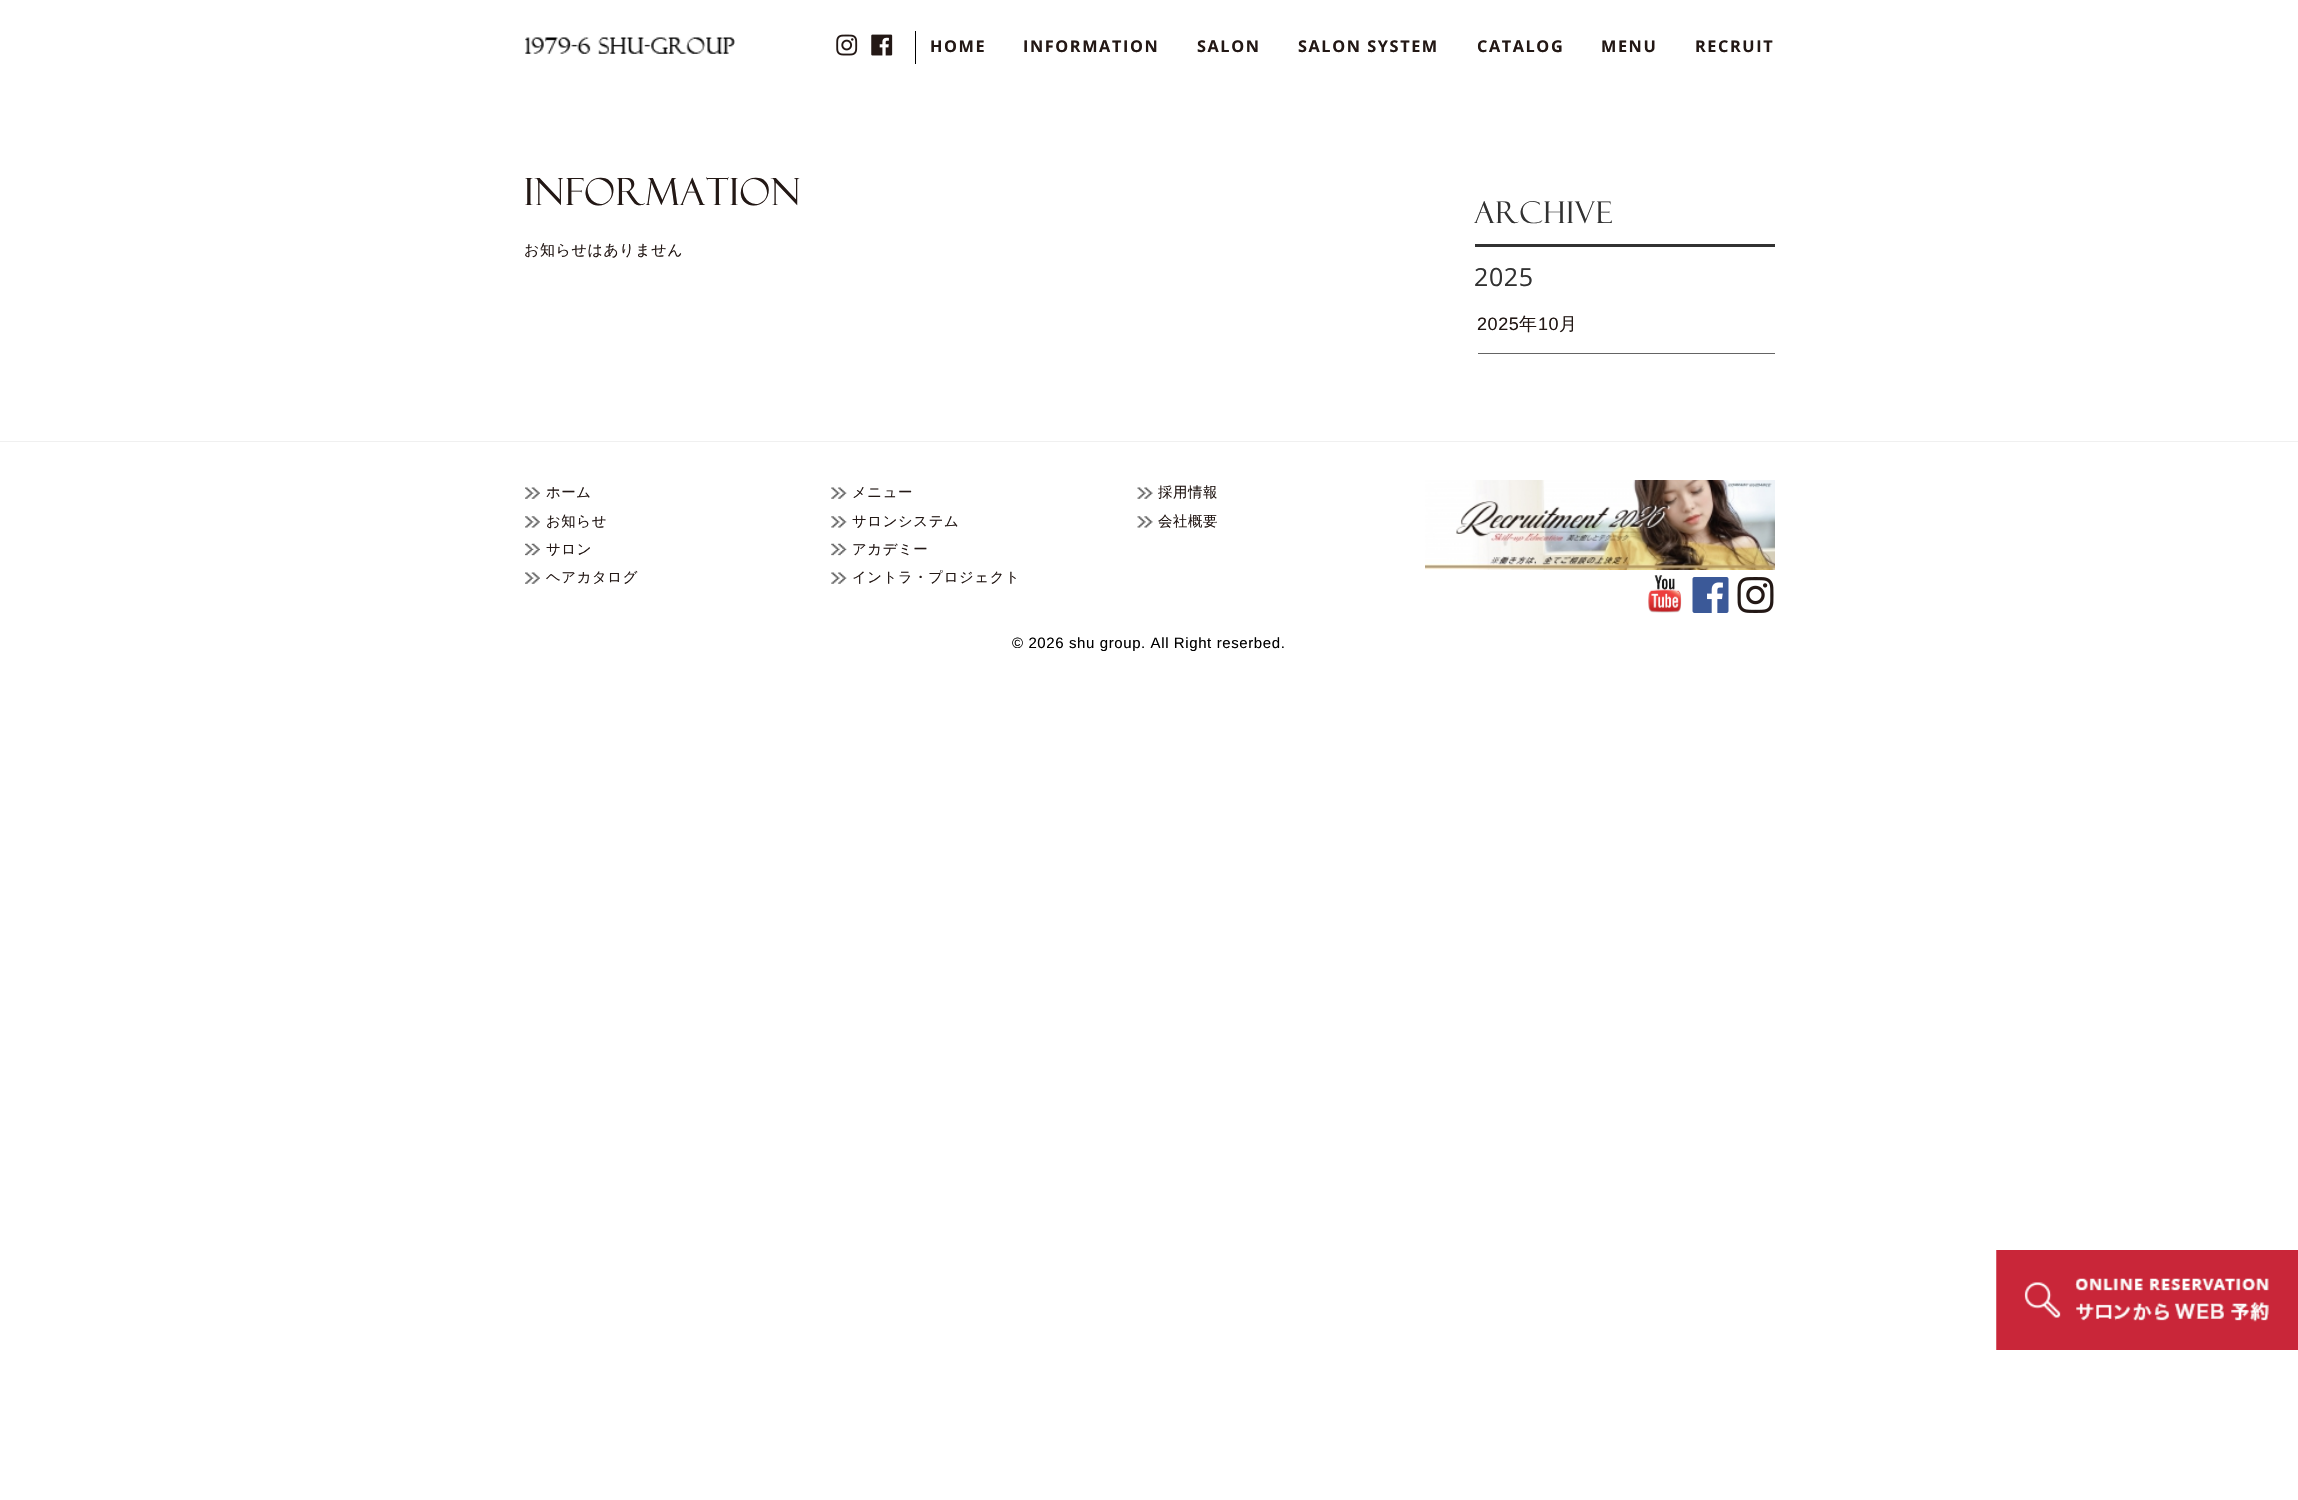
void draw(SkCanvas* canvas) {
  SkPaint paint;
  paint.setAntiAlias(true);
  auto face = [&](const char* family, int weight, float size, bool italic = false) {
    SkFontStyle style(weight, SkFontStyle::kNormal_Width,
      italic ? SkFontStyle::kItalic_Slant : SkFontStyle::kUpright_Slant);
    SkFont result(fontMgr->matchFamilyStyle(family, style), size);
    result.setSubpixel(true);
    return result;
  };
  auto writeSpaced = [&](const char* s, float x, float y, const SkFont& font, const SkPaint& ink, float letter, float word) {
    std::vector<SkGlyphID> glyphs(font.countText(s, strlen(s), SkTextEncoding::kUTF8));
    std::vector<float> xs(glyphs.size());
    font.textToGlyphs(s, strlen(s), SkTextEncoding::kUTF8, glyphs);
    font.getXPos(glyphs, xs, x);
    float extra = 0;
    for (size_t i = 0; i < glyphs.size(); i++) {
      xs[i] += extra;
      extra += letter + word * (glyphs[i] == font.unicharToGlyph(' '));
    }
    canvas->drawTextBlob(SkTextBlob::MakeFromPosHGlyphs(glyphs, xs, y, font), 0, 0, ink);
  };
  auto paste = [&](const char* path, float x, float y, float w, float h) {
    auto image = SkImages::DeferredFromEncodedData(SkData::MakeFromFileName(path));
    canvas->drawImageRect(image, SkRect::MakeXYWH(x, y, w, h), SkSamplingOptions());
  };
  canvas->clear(0xffffffff);
  paste("img/1.png", 525, 37, 210, 17);
  paint.setColor(0xff000000);
  canvas->drawRect(SkRect::MakeXYWH(915, 31, 1, 33), paint);
  paste("img/2.png", 836, 34, 22, 22);
  paste("img/3.png", 871, 34, 22, 22);
  {
    const struct { float x, y, w, h; SkColor color; } items[] = {
      {1475, 244, 300, 3, 0xff323232},
      {1478, 353, 297, 1, 0xff646464},
      {0, 441, 2298, 1, 0xfff0f0f0},
    };
    for (auto [x, y, w, h, color] : items) {
      paint.setColor(color);
      canvas->drawRect(SkRect::MakeXYWH(x, y, w, h), paint);
    }
  }
  paste("img/4.png", 525, 487, 15, 12);
  paste("img/5.png", 525, 516, 15, 12);
  paste("img/6.png", 525, 543, 15, 13);
  paste("img/4.png", 525, 572, 15, 12);
  paste("img/7.png", 831, 487, 16, 12);
  paste("img/8.png", 831, 516, 16, 12);
  paste("img/9.png", 831, 543, 16, 13);
  paste("img/7.png", 831, 572, 16, 12);
  paste("img/10.png", 1137, 487, 16, 12);
  paste("img/11.png", 1137, 516, 16, 12);
  paste("img/12.png", 1425, 480, 350, 90);
  paste("img/13.png", 1648, 575, 34, 38);
  paste("img/14.png", 1692, 577, 37, 36);
  paste("img/15.png", 1737, 577, 37, 36);
  paste("img/16.png", 1996, 1250, 302, 100);
  auto f0 = face("Open Sans", 700, 16.25f);
  paint.setColor(0xff231815);
  {
    const struct { const char* s; float x, y; } items[] = {
      {"HOME", 930, 52},
      {"INFORMATION", 1023, 52},
      {"SALON", 1197, 52},
      {"SALON SYSTEM", 1298, 52},
      {"CATALOG", 1477, 52},
      {"MENU", 1601, 52},
      {"RECRUIT", 1695, 52},
    };
    for (auto [s, x, y] : items) {
      writeSpaced(s, x, y, f0, paint, 1.6f, 0);
    }
  }
  auto f1 = face("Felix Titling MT", 400, 37.5f);
  writeSpaced("Information", 524, 205, f1, paint, 0.6f, 0);
  auto f2 = face("WenQuanYi Zen Hei", 500, 15);
  writeSpaced("お知らせはありません", 524, 255, f2, paint, 0.6f, 0);
  auto f3 = face("Felix Titling MT", 400, 30);
  paint.setColor(0xff323232);
  writeSpaced("Archive", 1474, 223, f3, paint, 0.6f, 0);
  auto f4 = face("Open Sans", 400, 25);
  writeSpaced("2025", 1474, 286, f4, paint, 0.6f, 0);
  auto f5 = face("Liberation Sans", 400, 18);
  paint.setColor(0xff231815);
  writeSpaced("2025", 1477, 330, f5, paint, 0.6f, 0);
  auto f6 = face("WenQuanYi Zen Hei", 500, 18);
  writeSpaced("年", 1519, 330, f6, paint, 0.6f, 0);
  writeSpaced("10", 1538, 330, f5, paint, 0.6f, 0);
  writeSpaced("月", 1559, 330, f6, paint, 0.6f, 0);
  auto f7 = face("WenQuanYi Zen Hei", 500, 14.4f);
  {
    const struct { const char* s; float x, y; } items[] = {
      {"ホーム", 546, 497},
      {"お知らせ", 546, 526},
      {"サロン", 546, 554},
      {"ヘアカタログ", 546, 582},
      {"メニュー", 852, 497},
      {"サロンシステム", 852, 526},
      {"アカデミー", 852, 554},
      {"イントラ・プロジェクト", 852, 582},
      {"採用情報", 1158, 497},
      {"会社概要", 1158, 526},
    };
    for (auto [s, x, y] : items) {
      writeSpaced(s, x, y, f7, paint, 0.6f, 0);
    }
  }
  auto f8 = face("Liberation Sans", 400, 15);
  paint.setColor(0xff000000);
  writeSpaced("© 2026 shu group. All Right reserbed.", 1012, 648, f8, paint, 0.6f, 0);
}
